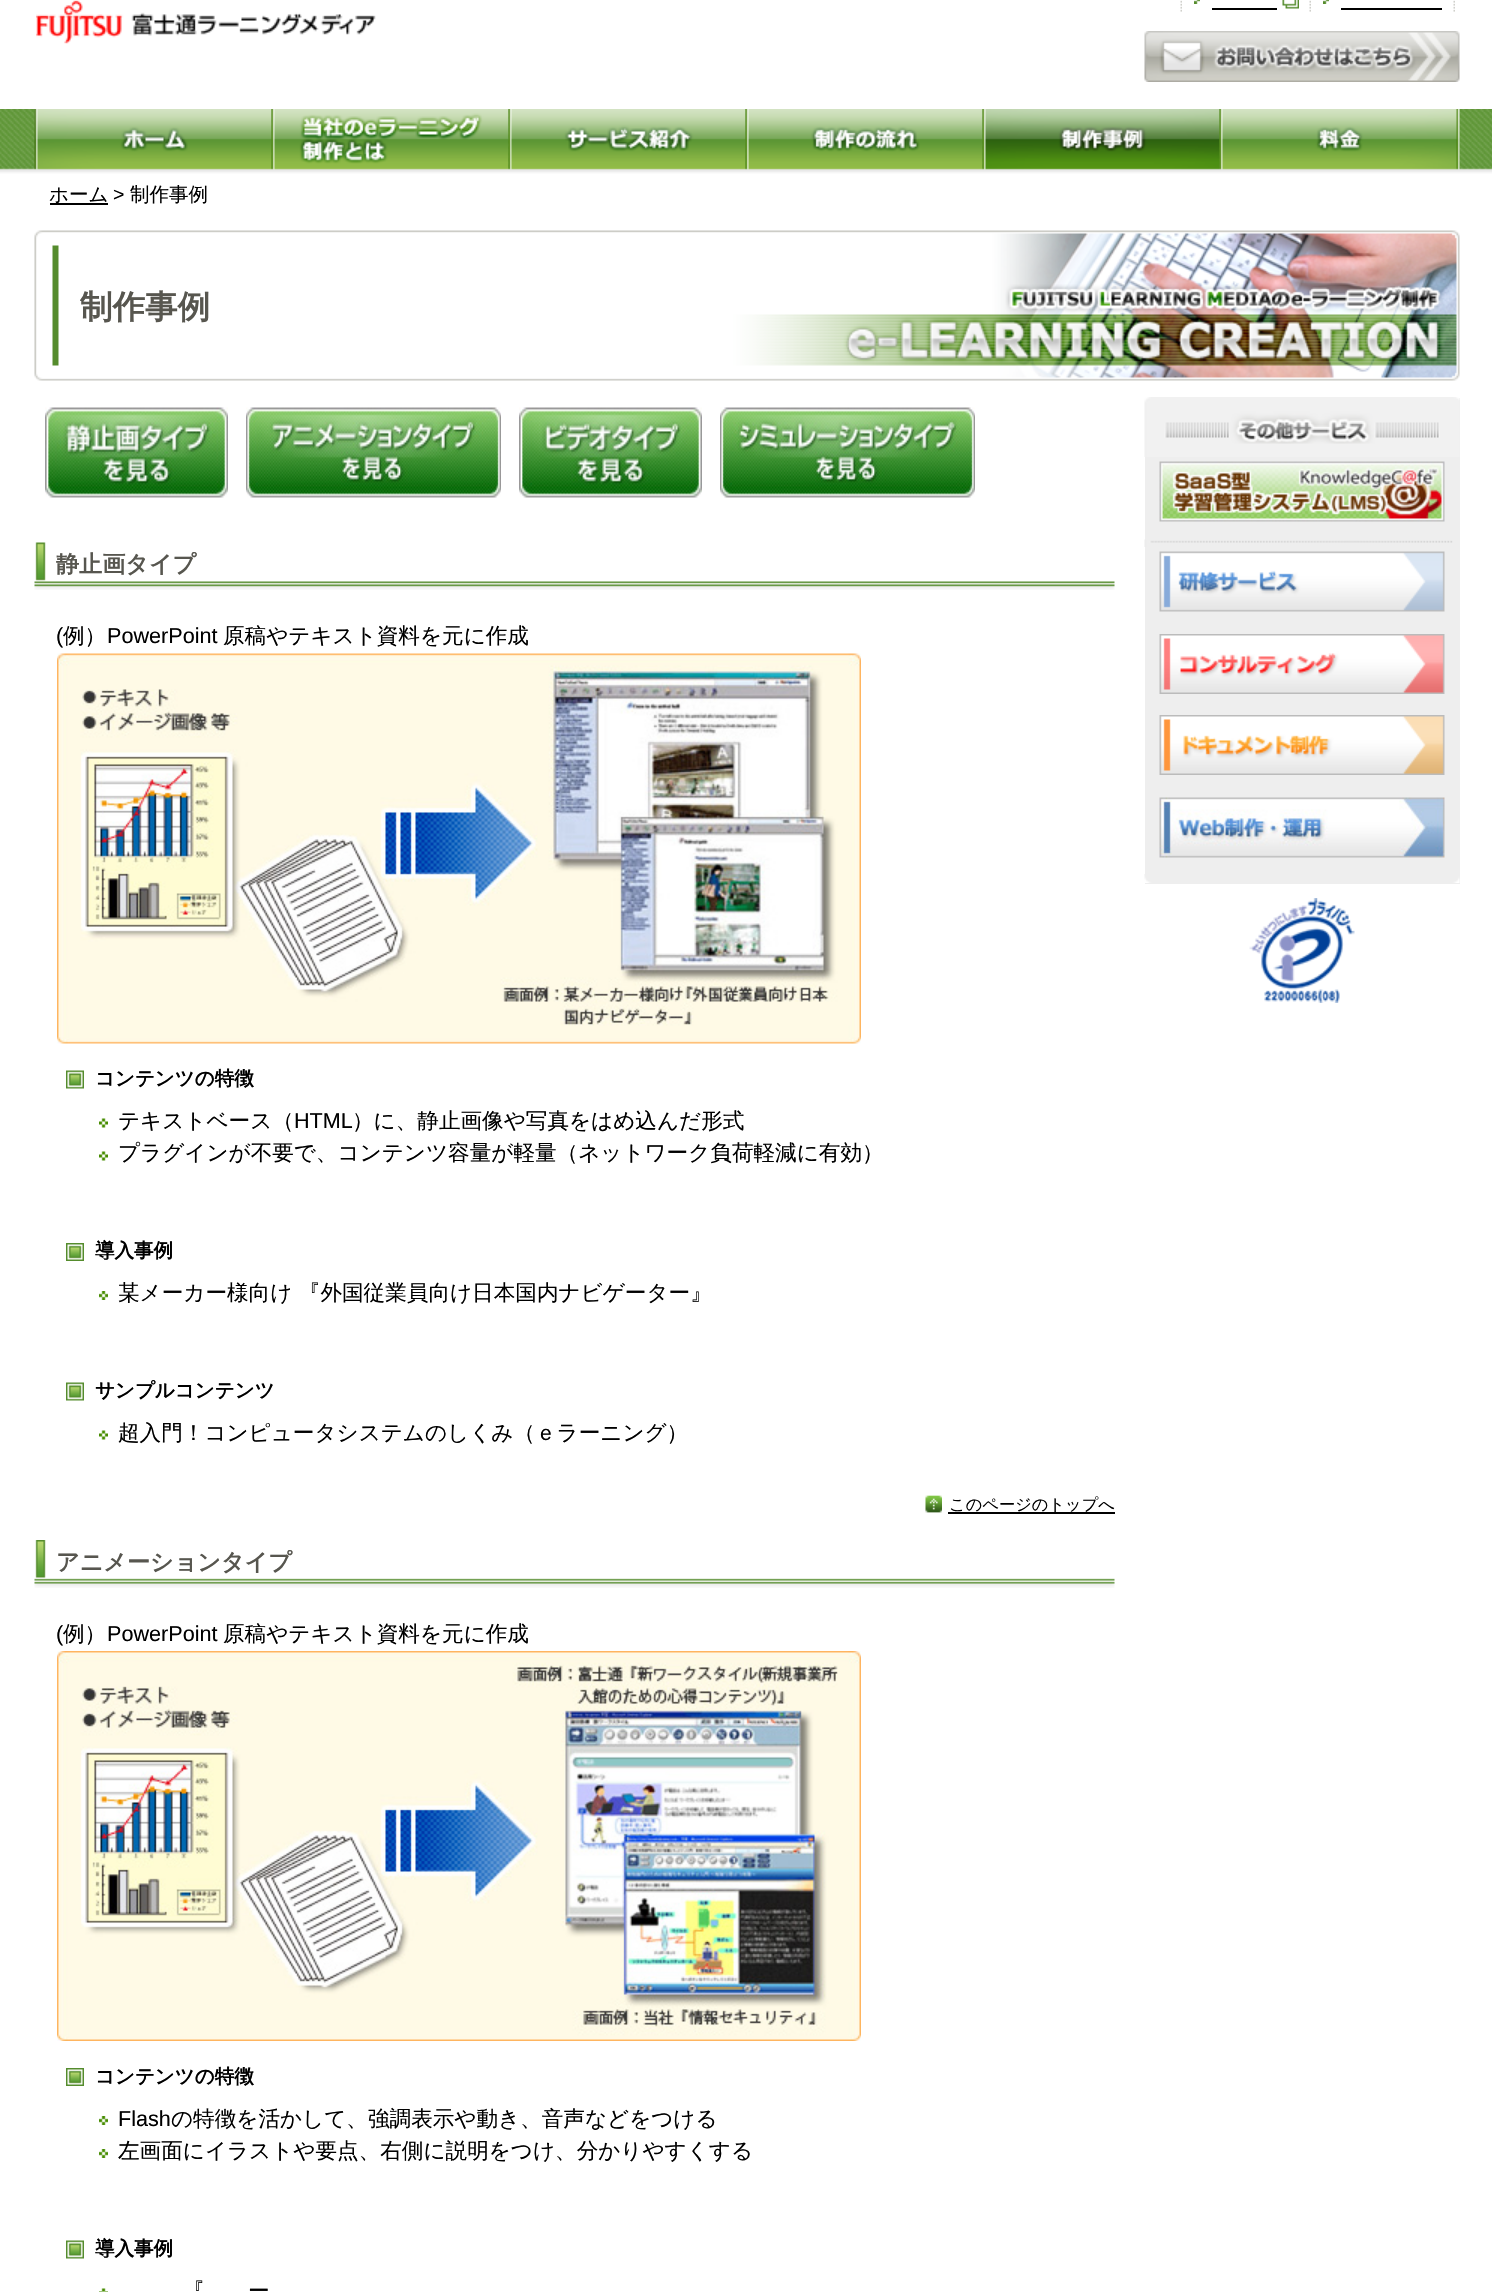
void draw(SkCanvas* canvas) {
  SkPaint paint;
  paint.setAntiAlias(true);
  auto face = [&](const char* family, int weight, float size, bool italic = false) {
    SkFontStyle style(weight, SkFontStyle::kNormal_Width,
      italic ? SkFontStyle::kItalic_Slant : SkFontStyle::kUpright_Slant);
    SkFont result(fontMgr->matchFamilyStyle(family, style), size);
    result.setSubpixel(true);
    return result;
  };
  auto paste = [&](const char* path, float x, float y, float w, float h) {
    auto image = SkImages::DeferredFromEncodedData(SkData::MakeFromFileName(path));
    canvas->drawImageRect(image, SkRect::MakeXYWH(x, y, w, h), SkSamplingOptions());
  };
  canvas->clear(0xffffffff);
  paste("img/1.png", 36, 0, 340, 44);
  paste("img/2.png", 1180, 0, 2, 12);
  paste("img/3.png", 1282, 0, 17, 9);
  paste("img/4.png", 1194, 0, 6, 4);
  paint.setColor(0xff000000);
  canvas->drawRect(SkRect::MakeXYWH(1212, 8, 65, 2), paint);
  paste("img/2.png", 1309, 0, 2, 12);
  paste("img/4.png", 1323, 0, 6, 4);
  canvas->drawRect(SkRect::MakeXYWH(1341, 8, 101, 2), paint);
  paste("img/2.png", 1453, 0, 2, 12);
  paste("img/5.png", 1144, 31, 316, 51);
  paste("img/6.png", 0, 109, 1492, 65);
  paste("img/7.png", 34, 109, 238, 61);
  paste("img/8.png", 271, 109, 238, 61);
  paste("img/9.png", 508, 109, 238, 61);
  paste("img/10.png", 745, 109, 238, 61);
  paste("img/11.png", 982, 109, 238, 61);
  paste("img/12.png", 1219, 109, 241, 61);
  canvas->drawRect(SkRect::MakeXYWH(50, 203, 58, 2), paint);
  paste("img/13.png", 34, 230, 1426, 151);
  paste("img/14.png", 45, 407, 183, 91);
  paste("img/15.png", 246, 407, 255, 91);
  paste("img/16.png", 519, 407, 183, 91);
  paste("img/17.png", 720, 407, 255, 91);
  paste("img/18.png", 34, 542, 1081, 48);
  paste("img/19.png", 57, 653, 804, 391);
  paste("img/20.png", 66, 1070, 18, 19);
  paste("img/21.png", 99, 1118, 9, 10);
  paste("img/21.png", 99, 1151, 9, 10);
  paste("img/22.png", 66, 1243, 18, 18);
  paste("img/23.png", 99, 1291, 9, 9);
  paste("img/20.png", 66, 1382, 18, 19);
  paste("img/21.png", 99, 1430, 9, 10);
  paste("img/24.png", 925, 1495, 17, 18);
  canvas->drawRect(SkRect::MakeXYWH(948, 1512, 167, 2), paint);
  paste("img/25.png", 34, 1540, 1081, 48);
  paste("img/26.png", 57, 1651, 804, 390);
  paste("img/22.png", 66, 2068, 18, 18);
  paste("img/23.png", 99, 2116, 9, 9);
  paste("img/23.png", 99, 2149, 9, 9);
  paste("img/20.png", 66, 2240, 18, 19);
  paste("img/27.png", 99, 2288, 9, 4);
  paint.setColor(0xffeeeeee);
  canvas->drawRect(SkRect::MakeXYWH(1145, 398, 315, 486), paint);
  paste("img/28.png", 1144, 874, 316, 9);
  paste("img/29.png", 1144, 397, 316, 60);
  paste("img/30.png", 1159, 461, 286, 61);
  paste("img/31.png", 1144, 539, 309, 8);
  paste("img/32.png", 1159, 551, 286, 61);
  paste("img/33.png", 1159, 634, 286, 60);
  paste("img/34.png", 1159, 715, 286, 60);
  paste("img/35.png", 1159, 797, 286, 61);
  paste("img/36.png", 1249, 898, 106, 105);
  auto f0 = face("WenQuanYi Zen Hei", 500, 19.5f);
  paint.setColor(0xff000000);
  canvas->drawString("ホーム", 49, 201, f0, paint);
  auto f1 = face("Liberation Sans", 400, 19.5f);
  canvas->drawString(">", 113, 201, f1, paint);
  canvas->drawString("制作事例", 130, 201, f0, paint);
  auto f2 = face("WenQuanYi Zen Hei", 700, 32.5f);
  paint.setColor(0xff57564f);
  canvas->drawString("制作事例", 80, 318, f2, paint);
  auto f3 = face("WenQuanYi Zen Hei", 700, 23.1f);
  canvas->drawString("静止画タイプ", 56, 572, f3, paint);
  auto f4 = face("Liberation Sans", 400, 21.6f);
  paint.setColor(0xff000000);
  canvas->drawString("(", 56, 643, f4, paint);
  auto f5 = face("WenQuanYi Zen Hei", 500, 21.6f);
  canvas->drawString("例）", 63, 643, f5, paint);
  canvas->drawString("PowerPoint", 107, 643, f4, paint);
  canvas->drawString("原稿やテキスト資料を元に作成", 223, 643, f5, paint);
  auto f6 = face("WenQuanYi Zen Hei", 700, 19.5f);
  canvas->drawString("コンテンツの特徴", 95, 1085, f6, paint);
  canvas->drawString("テキストベース（", 118, 1128, f5, paint);
  canvas->drawString("HTML", 294, 1128, f4, paint);
  canvas->drawString("）に、静止画像や写真をはめ込んだ形式", 352, 1128, f5, paint);
  canvas->drawString("プラグインが不要で、コンテンツ容量が軽量（ネットワーク負荷軽減に有効）", 118, 1160, f5, paint);
  canvas->drawString("導入事例", 95, 1257, f6, paint);
  canvas->drawString("某メーカー様向け 『外国従業員向け日本国内ナビゲーター』", 118, 1300, f5, paint);
  canvas->drawString("サンプルコンテンツ", 95, 1397, f6, paint);
  canvas->drawString("超入門！コンピュータシステムのしくみ（ｅラーニング）", 118, 1440, f5, paint);
  auto f7 = face("WenQuanYi Zen Hei", 500, 16.25f);
  canvas->drawString("このページのトップへ", 949, 1510, f7, paint);
  paint.setColor(0xff57564f);
  canvas->drawString("アニメーションタイプ", 56, 1570, f3, paint);
  paint.setColor(0xff000000);
  canvas->drawString("(", 56, 1641, f4, paint);
  canvas->drawString("例）", 63, 1641, f5, paint);
  canvas->drawString("PowerPoint", 107, 1641, f4, paint);
  canvas->drawString("原稿やテキスト資料を元に作成", 223, 1641, f5, paint);
  canvas->drawString("コンテンツの特徴", 95, 2083, f6, paint);
  canvas->drawString("Flash", 118, 2126, f4, paint);
  canvas->drawString("の特徴を活かして、強調表示や動き、音声などをつける", 171, 2126, f5, paint);
  canvas->drawString("左画面にイラストや要点、右側に説明をつけ、分かりやすくする", 118, 2158, f5, paint);
  canvas->drawString("導入事例", 95, 2255, f6, paint);
  canvas->drawString("『", 183, 2298, f5, paint);
  canvas->drawString("ー", 248, 2298, f5, paint);
}
